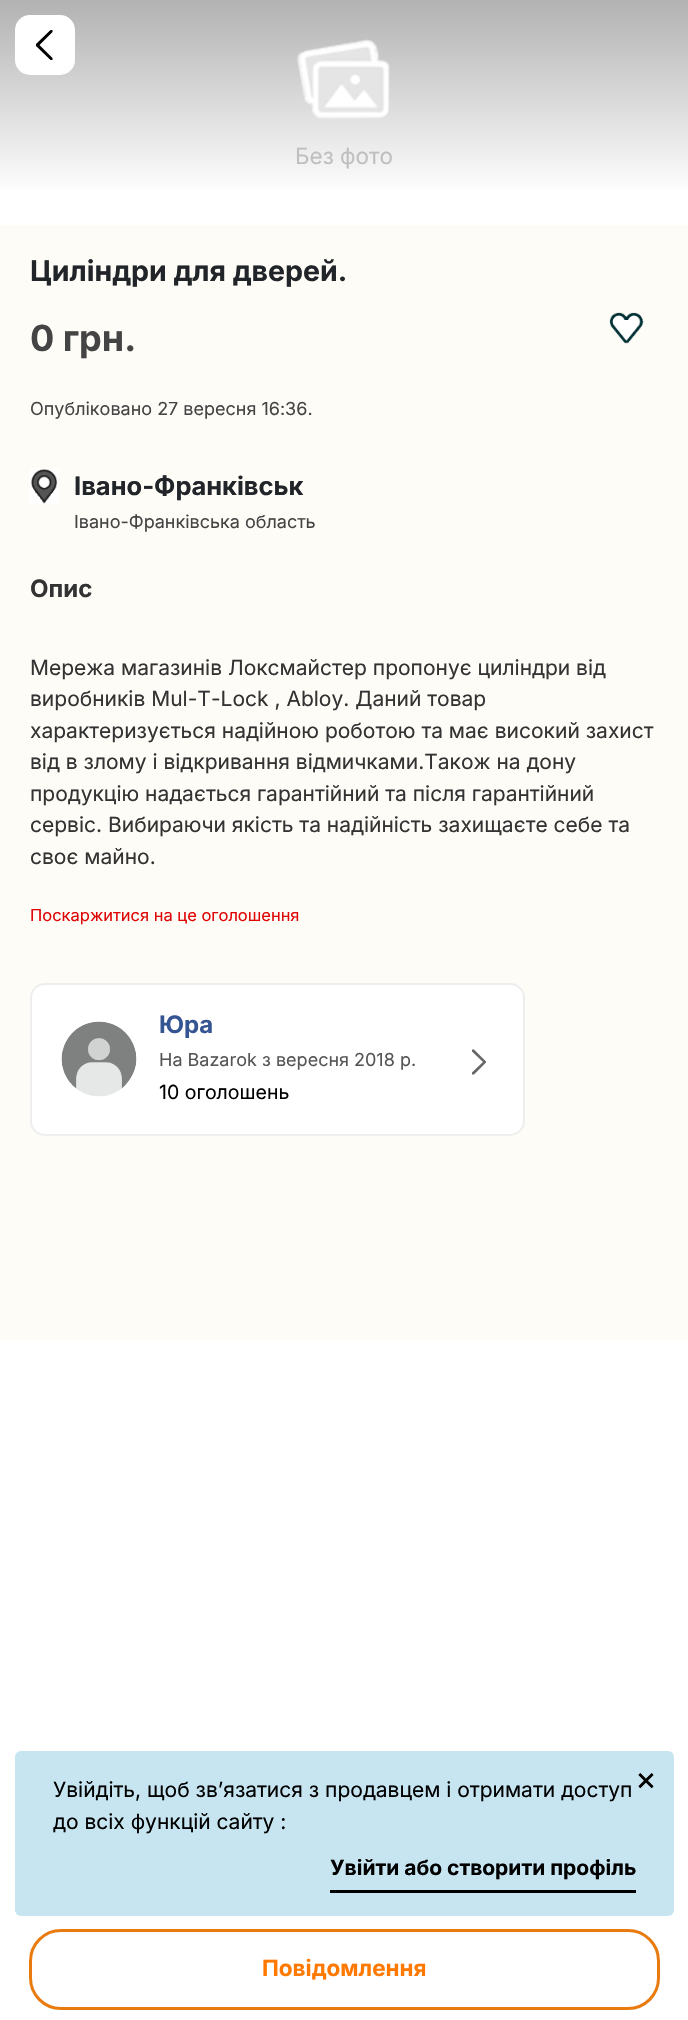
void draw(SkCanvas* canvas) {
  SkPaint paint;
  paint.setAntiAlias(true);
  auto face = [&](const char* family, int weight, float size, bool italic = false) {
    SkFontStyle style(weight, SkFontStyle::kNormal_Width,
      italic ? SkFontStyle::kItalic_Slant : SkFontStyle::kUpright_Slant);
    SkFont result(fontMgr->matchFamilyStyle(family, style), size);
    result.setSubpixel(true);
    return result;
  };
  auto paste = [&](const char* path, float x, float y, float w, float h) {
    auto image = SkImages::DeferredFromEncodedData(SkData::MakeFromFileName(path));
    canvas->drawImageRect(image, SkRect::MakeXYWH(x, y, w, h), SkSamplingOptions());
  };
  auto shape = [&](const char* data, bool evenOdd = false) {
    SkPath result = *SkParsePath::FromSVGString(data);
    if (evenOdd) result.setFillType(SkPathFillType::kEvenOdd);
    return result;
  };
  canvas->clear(0xffffffff);
  paint.setColor(0xfffefcf7);
  canvas->drawRect(SkRect::MakeXYWH(0, 225, 688, 1115), paint);
  {
    const SkColor colors[] = {0xffb2b2b2, 0xffffffff};
    const float stops[] = {0, 0.87f};
    const SkPoint ends[] = {{344, 0}, {344, 225}};
    paint.setShader(SkGradientShader::MakeLinear(ends, colors, stops, 2, SkTileMode::kClamp));
    paint.setAlpha(255);
  }
  canvas->drawRect(SkRect::MakeXYWH(0, 0, 688, 189), paint);
  paint.setShader(nullptr);
  paint.setColor(0xffffffff);
  canvas->drawRoundRect(SkRect::MakeXYWH(15, 15, 60, 60), 15, 15, paint);
  paint.setColor(0xff000000);
  canvas->drawPath(shape("M50.5 30L36 44V46L50.5 60H52.5V58L39.5 45L52.5 32V30Z", true), paint);
  paste("img/1.png", 297, 39, 93, 81);
  paste("img/2.png", 609, 312, 35, 32);
  paste("img/3.png", 30, 468, 29, 36);
  paint.setColor(0xffffffff);
  canvas->drawRoundRect(SkRect::MakeXYWH(31, 984, 493, 151), 14, 14, paint);
  paint.setStroke(true);
  paint.setStrokeWidth(2);
  paint.setColor(0xffeeeeee);
  canvas->drawRoundRect(SkRect::MakeXYWH(31, 984, 493, 151), 14, 14, paint);
  paste("img/4.png", 61, 1021, 76, 76);
  paint.setStroke(false);
  paint.setColor(0xff666666);
  canvas->drawPath(shape("M472 1049.5V1051.5L483 1062L472 1072.5V1074.5H474L486 1062.5V1061.5L474 1049.5Z", true), paint);
  paint.setColor(0xffc7e5f1);
  canvas->drawRoundRect(SkRect::MakeXYWH(15, 1751, 659, 165), 6, 6, paint);
  paint.setColor(0xff000000);
  canvas->drawRect(SkRect::MakeXYWH(330, 1890, 306, 3), paint);
  paint.setStroke(true);
  paint.setStrokeWidth(3);
  paint.setColor(0xffe97b0e);
  canvas->drawRoundRect(SkRect::MakeXYWH(30.5f, 1930.5f, 628, 78), 30.5f, 30.5f, paint);
  auto f0 = face("Inter", 400, 22.5f);
  paint.setStroke(false);
  paint.setColor(0xffbfbfbf);
  canvas->drawString("Без фото", 295, 164, f0, paint);
  auto f1 = face("Inter", 700, 28.5f);
  paint.setColor(0xff212529);
  canvas->drawString("Циліндри для дверей.", 30, 281, f1, paint);
  auto f2 = face("Inter", 700, 36);
  paint.setColor(0xff444444);
  canvas->drawString("0 грн.", 30, 351, f2, paint);
  auto f3 = face("Inter", 400, 18);
  canvas->drawString("Опубліковано 27 вересня 16:36.", 30, 415, f3, paint);
  auto f4 = face("Inter", 700, 25.5f);
  paint.setColor(0xff212529);
  canvas->drawString("Івано-Франківськ", 74, 495, f4, paint);
  paint.setColor(0xff444444);
  canvas->drawString("Івано-Франківська область", 74, 528, f3, paint);
  auto f5 = face("Inter", 700, 24);
  paint.setColor(0xff333333);
  canvas->drawString("Опис", 30, 597, f5, paint);
  auto f6 = face("Inter", 400, 21);
  {
    const struct { const char* s; float x, y; } items[] = {
      {"Мережа магазинів Локсмайстер пропонує циліндри від", 30, 675},
      {"виробників Mul-T-Lock , Abloy. Даний товар", 30, 706},
      {"характеризується надійною роботою та має високий захист", 30, 738},
      {"від в злому і відкривання відмичками.Також на дону", 30, 769},
      {"продукцію надається гарантійний та після гарантійний", 30, 801},
      {"сервіс. Вибираючи якість та надійність захищаєте себе та", 30, 832},
      {"своє майно.", 30, 864},
    };
    for (auto [s, x, y] : items) {
      canvas->drawString(s, x, y, f6, paint);
    }
  }
  auto f7 = face("Inter", 400, 16.5f);
  paint.setColor(0xffdf0505);
  canvas->drawString("Поскаржитися на це оголошення", 30, 921, f7, paint);
  paint.setColor(0xff345492);
  canvas->drawString("Юра", 159, 1033, f5, paint);
  paint.setColor(0xff555555);
  canvas->drawString("На Bazarok з вересня 2018 р.", 159, 1066, f3, paint);
  auto f8 = face("Inter", 400, 19.5f);
  paint.setColor(0xff000000);
  canvas->drawString("10 оголошень", 159, 1099, f8, paint);
  canvas->drawString("Увійдіть, щоб зв’язатися з продавцем і отримати доступ", 53, 1797, f6, paint);
  canvas->drawString("до всіх функцій сайту :", 53, 1829, f6, paint);
  auto f9 = face("Inter", 400, 33);
  canvas->drawString("×", 635, 1790, f9, paint);
  auto f10 = face("Inter", 700, 21);
  canvas->drawString("Увійти або створити профіль", 330, 1875, f10, paint);
  auto f11 = face("Inter", 700, 22.5f);
  paint.setColor(0xffff7800);
  canvas->drawString("Повідомлення", 262, 1976, f11, paint);
}
